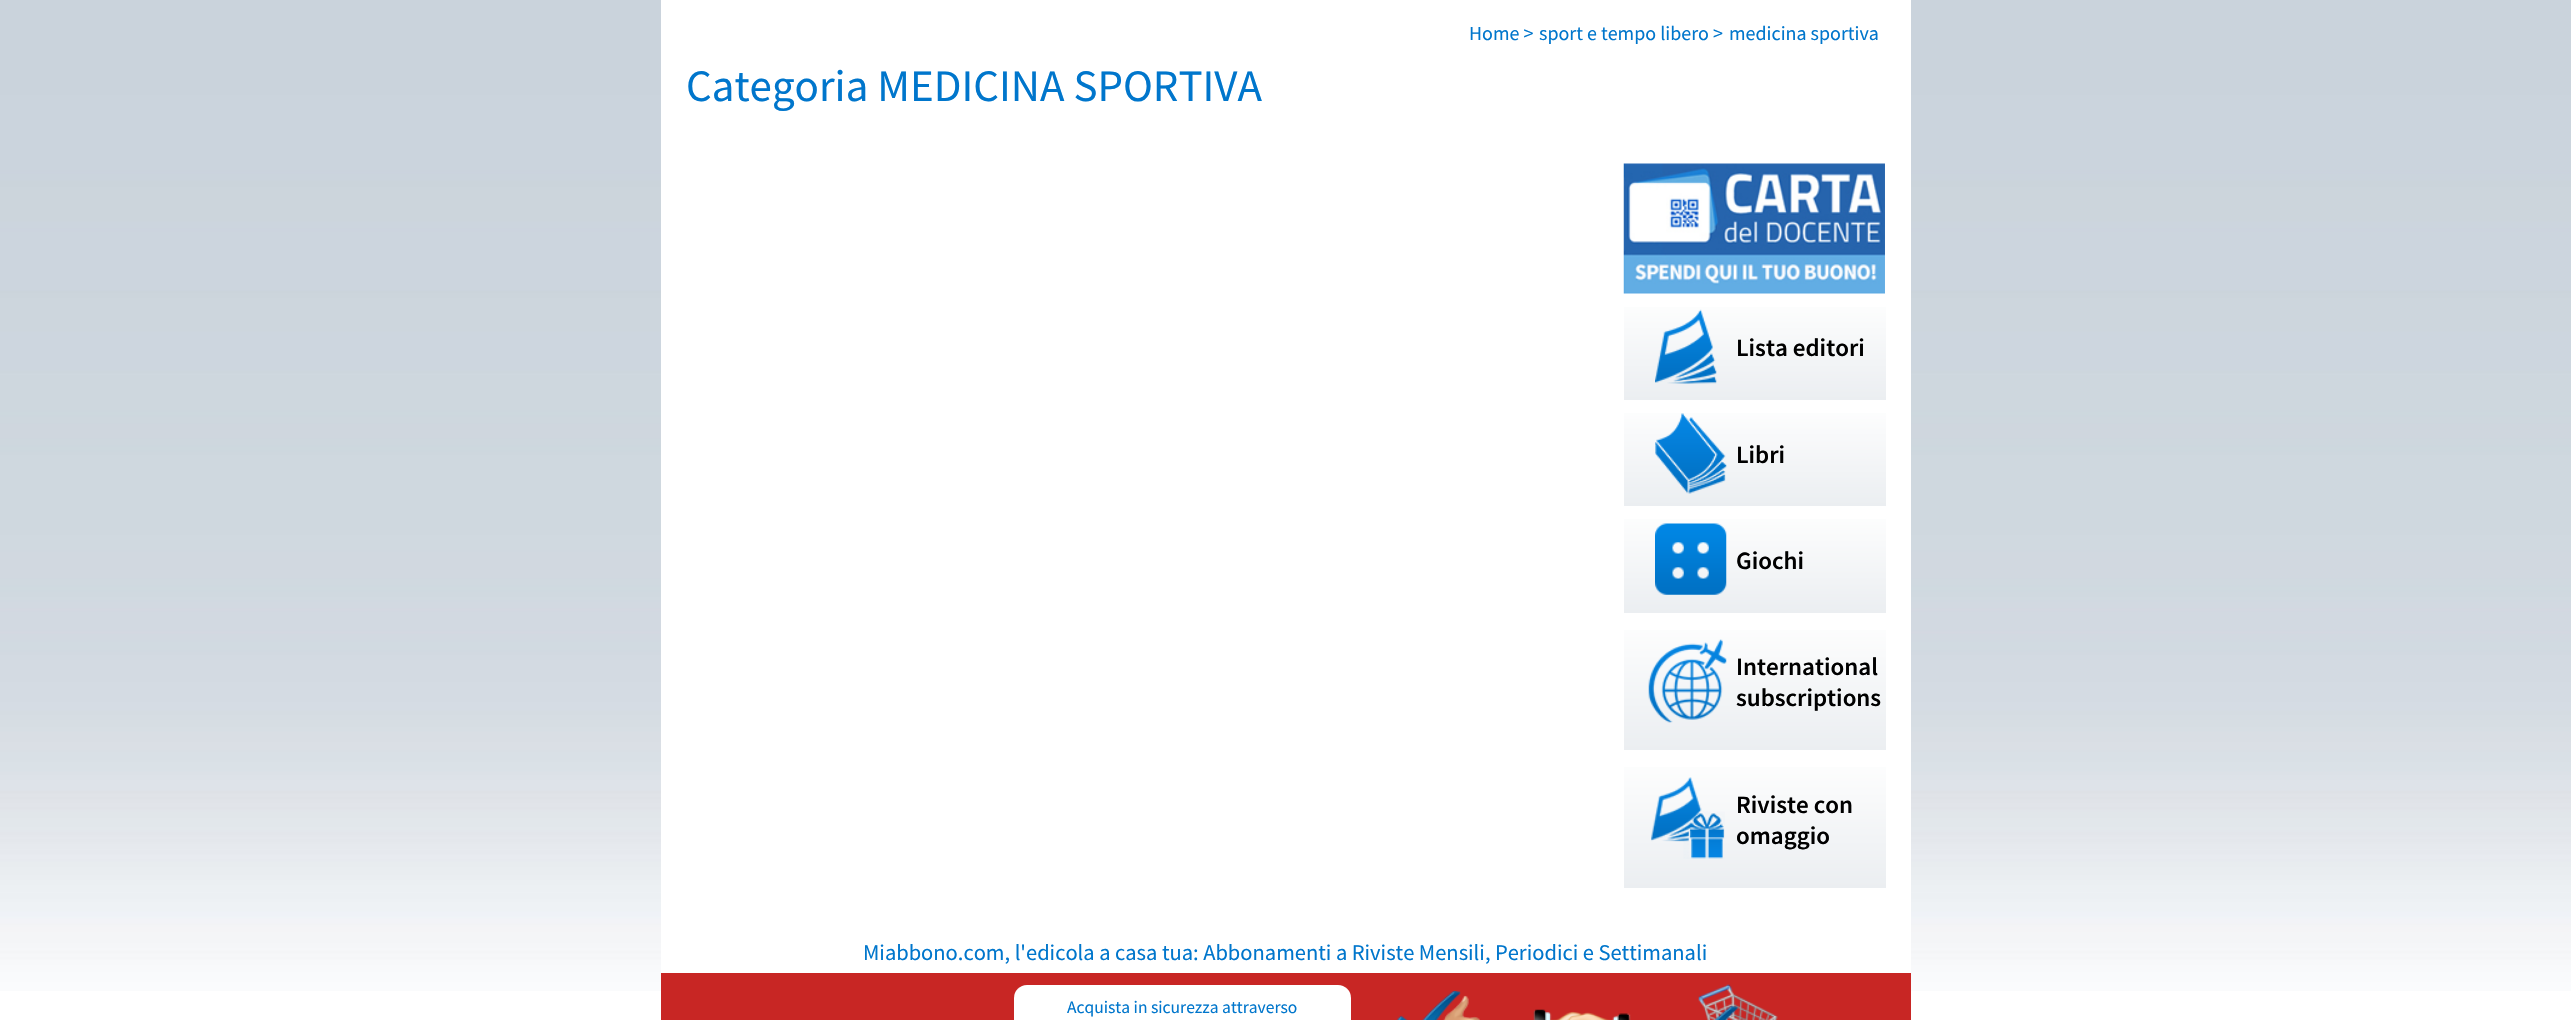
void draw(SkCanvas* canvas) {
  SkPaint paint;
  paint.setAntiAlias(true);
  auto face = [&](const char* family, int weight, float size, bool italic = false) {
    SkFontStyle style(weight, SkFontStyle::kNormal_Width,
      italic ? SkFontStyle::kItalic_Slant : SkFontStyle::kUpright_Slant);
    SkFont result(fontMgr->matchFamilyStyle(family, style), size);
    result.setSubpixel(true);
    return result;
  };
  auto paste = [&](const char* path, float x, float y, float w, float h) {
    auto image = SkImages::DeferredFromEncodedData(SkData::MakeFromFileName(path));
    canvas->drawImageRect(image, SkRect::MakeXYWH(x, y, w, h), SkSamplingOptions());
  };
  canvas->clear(0xffffffff);
  paste("img/1.png", 0, 0, 2571, 991);
  paint.setColor(0xffffffff);
  canvas->drawRect(SkRect::MakeXYWH(661, 0, 1250, 973), paint);
  paste("img/2.png", 1623, 163, 262, 131);
  {
    const SkColor colors[] = {0xffffffff, 0xffebeef1};
    const float stops[] = {0, 1};
    const SkPoint ends[] = {{1755, 294}, {1755, 400}};
    paint.setShader(SkGradientShader::MakeLinear(ends, colors, stops, 2, SkTileMode::kClamp));
    paint.setAlpha(255);
  }
  canvas->drawRect(SkRect::MakeXYWH(1624, 307, 262, 93), paint);
  paste("img/3.png", 1655, 309, 62, 75);
  {
    const SkColor colors[] = {0xffffffff, 0xffebeef1};
    const float stops[] = {0, 1};
    const SkPoint ends[] = {{1755, 400}, {1755, 506}};
    paint.setShader(SkGradientShader::MakeLinear(ends, colors, stops, 2, SkTileMode::kClamp));
    paint.setAlpha(255);
  }
  canvas->drawRect(SkRect::MakeXYWH(1624, 413, 262, 93), paint);
  paste("img/4.png", 1655, 413, 72, 81);
  {
    const SkColor colors[] = {0xffffffff, 0xffebeef1};
    const float stops[] = {0, 1};
    const SkPoint ends[] = {{1755, 506}, {1755, 613}};
    paint.setShader(SkGradientShader::MakeLinear(ends, colors, stops, 2, SkTileMode::kClamp));
    paint.setAlpha(255);
  }
  canvas->drawRect(SkRect::MakeXYWH(1624, 519, 262, 94), paint);
  paste("img/5.png", 1655, 523, 72, 72);
  {
    const SkColor colors[] = {0xffffffff, 0xffebeef1};
    const float stops[] = {0, 1};
    const SkPoint ends[] = {{1755, 613}, {1755, 750}};
    paint.setShader(SkGradientShader::MakeLinear(ends, colors, stops, 2, SkTileMode::kClamp));
    paint.setAlpha(255);
  }
  canvas->drawRect(SkRect::MakeXYWH(1624, 630, 262, 120), paint);
  paste("img/6.png", 1648, 639, 79, 84);
  {
    const SkColor colors[] = {0xffffffff, 0xffebeef1};
    const float stops[] = {0, 1};
    const SkPoint ends[] = {{1755, 750}, {1755, 888}};
    paint.setShader(SkGradientShader::MakeLinear(ends, colors, stops, 2, SkTileMode::kClamp));
    paint.setAlpha(255);
  }
  canvas->drawRect(SkRect::MakeXYWH(1624, 767, 262, 121), paint);
  paste("img/7.png", 1651, 777, 74, 82);
  paint.setShader(nullptr);
  paint.setColor(0xffc82624);
  canvas->drawRect(SkRect::MakeXYWH(661, 973, 1250, 47), paint);
  paint.setColor(0xffffffff);
  canvas->drawRoundRect(SkRect::MakeXYWH(1014, 985, 337, 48), 13, 13, paint);
  paste("img/8.png", 1397, 991, 83, 29);
  paste("img/9.png", 1533, 1009, 98, 11);
  paste("img/10.png", 1698, 984, 80, 36);
  auto f0 = face("Source Sans Pro", 400, 20);
  paint.setColor(0xff0076cc);
  {
    const struct { const char* s; float x, y; } items[] = {
      {"Home >", 1469, 40},
      {"sport e tempo libero >", 1539, 40},
      {"medicina sportiva", 1729, 40},
    };
    for (auto [s, x, y] : items) {
      canvas->drawString(s, x, y, f0, paint);
    }
  }
  auto f1 = face("Source Sans Pro", 400, 45);
  canvas->drawString("Categoria MEDICINA SPORTIVA", 686, 101, f1, paint);
  auto f2 = face("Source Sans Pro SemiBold", 600, 25);
  paint.setColor(0xff000000);
  {
    const struct { const char* s; float x, y; } items[] = {
      {"Lista editori", 1736, 356},
      {"Libri", 1736, 463},
      {"Giochi", 1736, 569},
      {"International", 1736, 675},
      {"subscriptions", 1736, 706},
      {"Riviste con", 1736, 813},
      {"omaggio", 1736, 844},
    };
    for (auto [s, x, y] : items) {
      canvas->drawString(s, x, y, f2, paint);
    }
  }
  auto f3 = face("Source Sans Pro", 400, 22.5f);
  paint.setColor(0xff0076cc);
  canvas->drawString("Miabbono.com, l'edicola a casa tua: Abbonamenti a Riviste Mensili, Periodici e Settimanali", 863, 960, f3, paint);
  auto f4 = face("Source Sans Pro", 400, 17.5f);
  canvas->drawString("Acquista in sicurezza attraverso", 1067, 1013, f4, paint);
}
